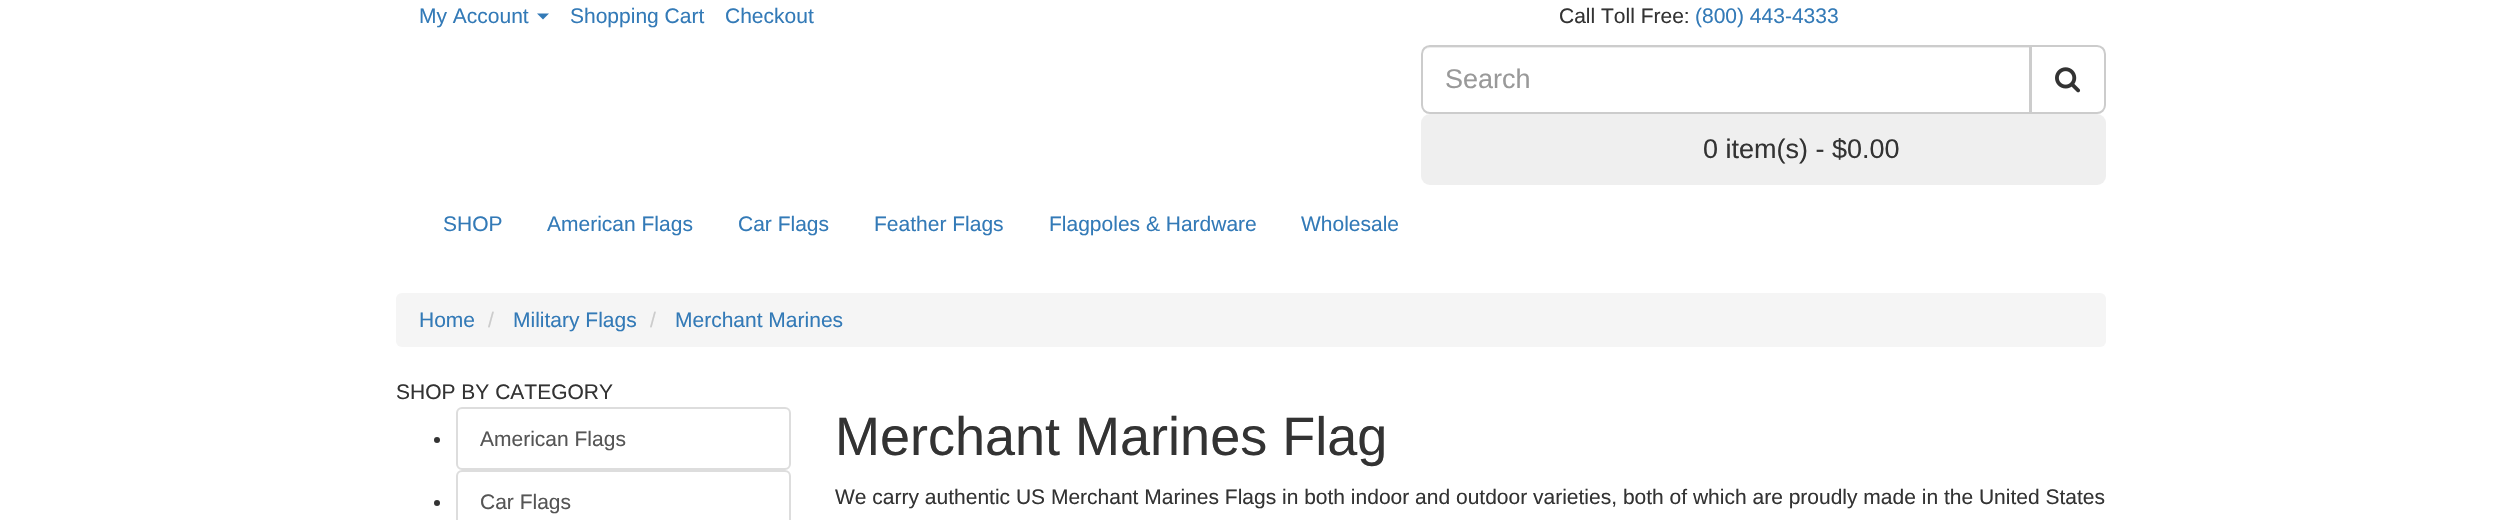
void draw(SkCanvas* canvas) {
  SkPaint paint;
  paint.setAntiAlias(true);
  auto face = [&](const char* family, int weight, float size, bool italic = false) {
    SkFontStyle style(weight, SkFontStyle::kNormal_Width,
      italic ? SkFontStyle::kItalic_Slant : SkFontStyle::kUpright_Slant);
    SkFont result(fontMgr->matchFamilyStyle(family, style), size);
    result.setSubpixel(true);
    return result;
  };
  auto paste = [&](const char* path, float x, float y, float w, float h) {
    auto image = SkImages::DeferredFromEncodedData(SkData::MakeFromFileName(path));
    canvas->drawImageRect(image, SkRect::MakeXYWH(x, y, w, h), SkSamplingOptions());
  };
  auto shape = [&](const char* data, bool evenOdd = false) {
    SkPath result = *SkParsePath::FromSVGString(data);
    if (evenOdd) result.setFillType(SkPathFillType::kEvenOdd);
    return result;
  };
  canvas->clear(0xffffffff);
  paint.setColor(0xff337ab7);
  canvas->drawPath(shape("M537 13.5H549L543 19.5Z"), paint);
  paint.setColor(0xffececec);
  canvas->drawPath(shape("M1430 48H2030V47H1430C1425 47 1422 51 1422 56C1422 51 1425 48 1430 48Z"), paint);
  paint.setStroke(true);
  paint.setStrokeWidth(2);
  paint.setColor(0xffcccccc);
  canvas->drawPath(shape("M1430 46H2030V113H1430C1425.5 113 1422 109.5 1422 105V54C1422 49.5 1425.5 46 1430 46Z"), paint);
  paint.setStroke(false);
  paint.setColor(0xffffffff);
  canvas->drawPath(shape("M2031 46H2097C2101.5 46 2105 49.5 2105 54V105C2105 109.5 2101.5 113 2097 113H2031Z"), paint);
  paint.setStroke(true);
  paint.setColor(0xffcccccc);
  canvas->drawPath(shape("M2031 46H2097C2101.5 46 2105 49.5 2105 54V105C2105 109.5 2101.5 113 2097 113H2031Z"), paint);
  paste("img/1.png", 2055, 67, 26, 26);
  paint.setStroke(false);
  paint.setColor(0xffefefef);
  canvas->drawRoundRect(SkRect::MakeXYWH(1421, 114, 685, 71), 9, 9, paint);
  paint.setColor(0xfff5f5f5);
  canvas->drawRoundRect(SkRect::MakeXYWH(396, 293, 1710, 54), 6, 6, paint);
  paint.setColor(0xff333333);
  canvas->drawCircle(437, 440, 3, paint);
  paint.setStroke(true);
  paint.setColor(0xffdddddd);
  canvas->drawRoundRect(SkRect::MakeXYWH(457, 408, 333, 61), 5, 5, paint);
  paint.setStroke(false);
  paint.setColor(0xff333333);
  canvas->drawCircle(437, 503, 3, paint);
  paint.setStroke(true);
  paint.setColor(0xffdddddd);
  canvas->drawRoundRect(SkRect::MakeXYWH(457, 471, 333, 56), 5, 5, paint);
  auto f0 = face("Liberation Sans", 400, 21);
  paint.setStroke(false);
  paint.setColor(0xff337ab7);
  {
    const struct { const char* s; float x, y; } items[] = {
      {"My Account", 419, 23},
      {"Shopping Cart", 570, 23},
      {"Checkout", 725, 23},
    };
    for (auto [s, x, y] : items) {
      canvas->drawString(s, x, y, f0, paint);
    }
  }
  paint.setColor(0xff333333);
  canvas->drawString("Call Toll Free:", 1559, 23, f0, paint);
  paint.setColor(0xff337ab7);
  canvas->drawString("(800) 443-4333", 1695, 23, f0, paint);
  auto f1 = face("Liberation Sans", 400, 27);
  paint.setColor(0xff999999);
  canvas->drawString("Search", 1445, 88, f1, paint);
  paint.setColor(0xff333333);
  canvas->drawString("0 item(s) - $0.00", 1703, 158, f1, paint);
  paint.setColor(0xff337ab7);
  {
    const struct { const char* s; float x, y; } items[] = {
      {"SHOP", 443, 231},
      {"American Flags", 547, 231},
      {"Car Flags", 738, 231},
      {"Feather Flags", 874, 231},
      {"Flagpoles & Hardware", 1049, 231},
      {"Wholesale", 1301, 231},
      {"Home", 419, 327},
    };
    for (auto [s, x, y] : items) {
      canvas->drawString(s, x, y, f0, paint);
    }
  }
  paint.setColor(0xffcccccc);
  canvas->drawString("/", 488, 327, f0, paint);
  paint.setColor(0xff337ab7);
  canvas->drawString("Military Flags", 513, 327, f0, paint);
  paint.setColor(0xffcccccc);
  canvas->drawString("/", 650, 327, f0, paint);
  paint.setColor(0xff337ab7);
  canvas->drawString("Merchant Marines", 675, 327, f0, paint);
  paint.setColor(0xff333333);
  canvas->drawString("SHOP BY CATEGORY", 396, 399, f0, paint);
  paint.setColor(0xff555555);
  canvas->drawString("American Flags", 480, 446, f0, paint);
  canvas->drawString("Car Flags", 480, 509, f0, paint);
  auto f2 = face("Liberation Sans", 400, 54);
  paint.setColor(0xff333333);
  canvas->drawString("Merchant Marines Flag", 835, 455, f2, paint);
  canvas->drawString("We carry authentic US Merchant Marines Flags in both indoor and outdoor varieties, both of which are proudly made in the United States", 835, 504, f0, paint);
}
